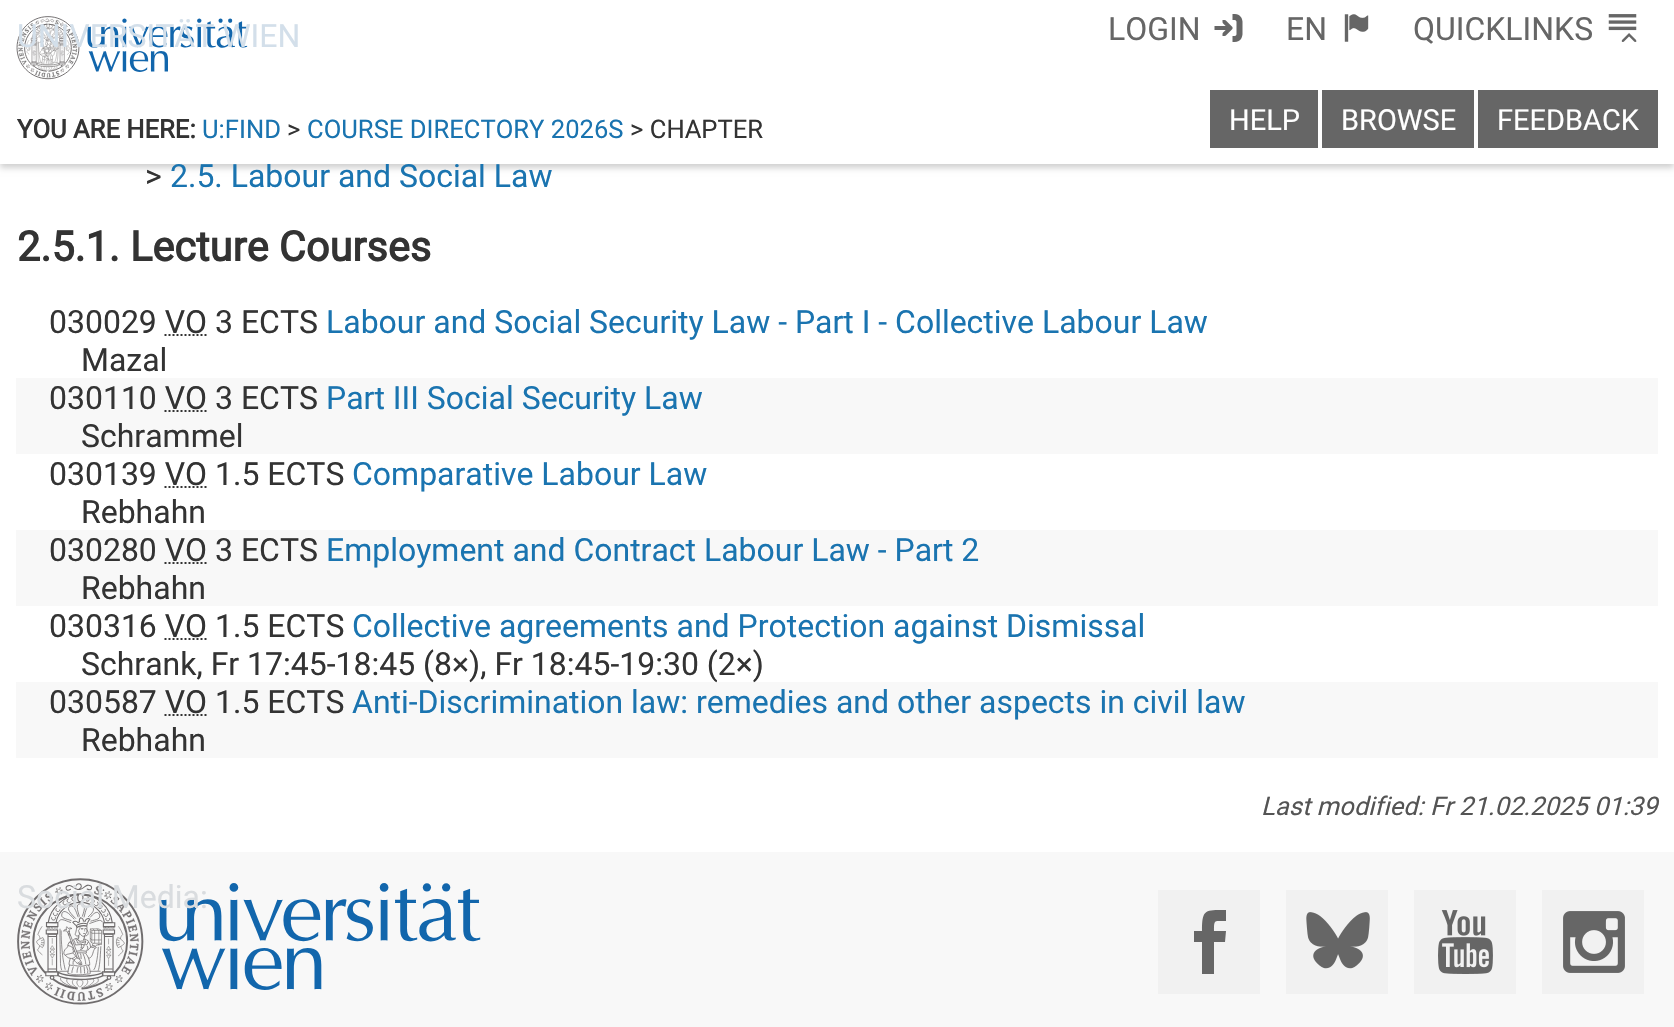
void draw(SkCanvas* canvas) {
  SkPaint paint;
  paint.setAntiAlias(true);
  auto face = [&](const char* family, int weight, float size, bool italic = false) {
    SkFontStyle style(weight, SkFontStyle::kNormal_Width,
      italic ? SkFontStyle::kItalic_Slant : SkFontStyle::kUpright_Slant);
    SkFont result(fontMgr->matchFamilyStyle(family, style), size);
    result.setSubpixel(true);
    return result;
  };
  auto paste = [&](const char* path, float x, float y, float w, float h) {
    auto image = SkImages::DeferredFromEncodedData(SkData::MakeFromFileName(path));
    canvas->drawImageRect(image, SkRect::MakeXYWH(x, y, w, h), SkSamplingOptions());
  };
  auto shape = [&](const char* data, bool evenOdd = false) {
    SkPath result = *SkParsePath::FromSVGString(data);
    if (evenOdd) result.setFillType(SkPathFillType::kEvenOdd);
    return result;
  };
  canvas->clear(0xffffffff);
  paint.setColor(0x2e000000);
  paint.setMaskFilter(SkMaskFilter::MakeBlur(kNormal_SkBlurStyle, 3));
  canvas->drawRect(SkRect::MakeXYWH(0, 4, 1674, 164), paint);
  paint.setMaskFilter(nullptr);
  paint.setStroke(true);
  paint.setStrokeWidth(2);
  paint.setColor(0xff333333);
  paint.setPathEffect(SkDashPathEffect::Make({{2, 2}}, 0));
  canvas->drawPath(shape("M164.5 335H207"), paint);
  paint.setPathEffect(nullptr);
  paint.setStroke(false);
  paint.setColor(0xfff8f8f8);
  canvas->drawRect(SkRect::MakeXYWH(16, 378, 1642, 76), paint);
  paint.setStroke(true);
  paint.setColor(0xff333333);
  paint.setPathEffect(SkDashPathEffect::Make({{2, 2}}, 0));
  canvas->drawPath(shape("M164.5 411H207"), paint);
  paint.setPathEffect(nullptr);
  paint.setPathEffect(SkDashPathEffect::Make({{2, 2}}, 0));
  canvas->drawPath(shape("M164.5 487H207"), paint);
  paint.setPathEffect(nullptr);
  paint.setStroke(false);
  paint.setColor(0xfff8f8f8);
  canvas->drawRect(SkRect::MakeXYWH(16, 530, 1642, 76), paint);
  paint.setStroke(true);
  paint.setColor(0xff333333);
  paint.setPathEffect(SkDashPathEffect::Make({{2, 2}}, 0));
  canvas->drawPath(shape("M164.5 563H207"), paint);
  paint.setPathEffect(nullptr);
  paint.setPathEffect(SkDashPathEffect::Make({{2, 2}}, 0));
  canvas->drawPath(shape("M164.5 639H207"), paint);
  paint.setPathEffect(nullptr);
  paint.setStroke(false);
  paint.setColor(0xfff8f8f8);
  canvas->drawRect(SkRect::MakeXYWH(16, 682, 1642, 76), paint);
  paint.setStroke(true);
  paint.setColor(0xff333333);
  paint.setPathEffect(SkDashPathEffect::Make({{2, 2}}, 0));
  canvas->drawPath(shape("M164.5 715H207"), paint);
  paint.setPathEffect(nullptr);
  paint.setStroke(false);
  paint.setColor(0xfff8f8f8);
  canvas->drawRect(SkRect::MakeXYWH(0, 852, 1674, 175), paint);
  paste("img/5.png", 17, 878, 464, 127);
  paint.setColor(0xfff1f1f1);
  canvas->drawRect(SkRect::MakeXYWH(1158, 890, 102, 104), paint);
  paint.setColor(0xff666666);
  canvas->drawPath(shape("M1214 931C1214 919 1214 921 1226 921V910C1205 910 1202 909 1202 931H1194V942H1202V974H1214V942H1225L1226 931Z"), paint);
  paint.setColor(0xfff1f1f1);
  canvas->drawRect(SkRect::MakeXYWH(1286, 890, 102, 104), paint);
  paste("img/6.png", 1306, 912, 64, 57);
  canvas->drawRect(SkRect::MakeXYWH(1414, 890, 102, 104), paint);
  paste("img/7.png", 1438, 910, 55, 64);
  canvas->drawRect(SkRect::MakeXYWH(1542, 890, 102, 104), paint);
  paste("img/8.png", 1563, 911, 62, 62);
  auto f0 = face("Roboto", 400, 32);
  paint.setColor(0xff333333);
  canvas->drawString(">", 145, 187, f0, paint);
  paint.setColor(0xff1a74b0);
  canvas->drawString("2.5. Labour and Social Law", 170, 187, f0, paint);
  paint.setColor(0xffffffff);
  canvas->drawRect(SkRect::MakeXYWH(0, 0, 1674, 164), paint);
  paste("img/1.png", 16, 16, 232, 64);
  paint.setColor(0xffd3dfea);
  canvas->drawString("UNIVERSITÄT WIEN", 17, 47, f0, paint);
  auto f1 = face("Roboto", 400, 25.6f);
  paint.setColor(0xff333333);
  canvas->drawString("> CHAPTER", 630, 138, f1, paint);
  paint.setColor(0xff1a74b0);
  canvas->drawString("COURSE DIRECTORY 2026S", 307, 138, f1, paint);
  paint.setColor(0xff333333);
  canvas->drawString(">", 287, 138, f1, paint);
  paint.setColor(0xff1a74b0);
  canvas->drawString("U:FIND", 202, 138, f1, paint);
  auto f2 = face("Roboto", 700, 25.6f);
  paint.setColor(0xff333333);
  canvas->drawString("YOU ARE HERE:", 17, 138, f2, paint);
  paint.setColor(0xff666666);
  canvas->drawRect(SkRect::MakeXYWH(1478, 90, 180, 58), paint);
  auto f3 = face("Roboto", 400, 29);
  paint.setColor(0xffffffff);
  canvas->drawString("FEEDBACK", 1497, 130, f3, paint);
  paint.setColor(0xff666666);
  canvas->drawRect(SkRect::MakeXYWH(1322, 90, 152, 58), paint);
  paint.setColor(0xffffffff);
  canvas->drawString("BROWSE", 1341, 130, f3, paint);
  paint.setColor(0xff666666);
  canvas->drawRect(SkRect::MakeXYWH(1210, 90, 108, 58), paint);
  paint.setColor(0xffffffff);
  canvas->drawString("HELP", 1229, 130, f3, paint);
  paste("img/4.png", 1608, 14, 29, 28);
  paint.setColor(0xff666666);
  canvas->drawString("QUICKLINKS", 1413, 40, f0, paint);
  paste("img/3.png", 1344, 14, 25, 28);
  canvas->drawString("EN", 1286, 40, f0, paint);
  paste("img/2.png", 1214, 14, 29, 28);
  canvas->drawString("LOGIN", 1108, 40, f0, paint);
  auto f4 = face("Roboto", 700, 41.5f);
  paint.setColor(0xff333333);
  canvas->drawString("2.5.1. Lecture Courses", 17, 261, f4, paint);
  canvas->drawString("030029 VO 3 ECTS", 49, 333, f0, paint);
  paint.setColor(0xff1a74b0);
  canvas->drawString("Labour and Social Security Law - Part I - Collective Labour Law", 326, 333, f0, paint);
  paint.setColor(0xff333333);
  canvas->drawString("Mazal", 81, 371, f0, paint);
  canvas->drawString("030110 VO 3 ECTS", 49, 409, f0, paint);
  paint.setColor(0xff1a74b0);
  canvas->drawString("Part III Social Security Law", 326, 409, f0, paint);
  paint.setColor(0xff333333);
  canvas->drawString("Schrammel", 81, 447, f0, paint);
  canvas->drawString("030139 VO 1.5 ECTS", 49, 485, f0, paint);
  paint.setColor(0xff1a74b0);
  canvas->drawString("Comparative Labour Law", 352, 485, f0, paint);
  paint.setColor(0xff333333);
  canvas->drawString("Rebhahn", 81, 523, f0, paint);
  canvas->drawString("030280 VO 3 ECTS", 49, 561, f0, paint);
  paint.setColor(0xff1a74b0);
  canvas->drawString("Employment and Contract Labour Law - Part 2", 326, 561, f0, paint);
  paint.setColor(0xff333333);
  canvas->drawString("Rebhahn", 81, 599, f0, paint);
  canvas->drawString("030316 VO 1.5 ECTS", 49, 637, f0, paint);
  paint.setColor(0xff1a74b0);
  canvas->drawString("Collective agreements and Protection against Dismissal", 352, 637, f0, paint);
  paint.setColor(0xff333333);
  canvas->drawString("Schrank, Fr 17:45-18:45 (8×), Fr 18:45-19:30 (2×)", 81, 675, f0, paint);
  canvas->drawString("030587 VO 1.5 ECTS", 49, 713, f0, paint);
  paint.setColor(0xff1a74b0);
  canvas->drawString("Anti-Discrimination law: remedies and other aspects in civil law", 352, 713, f0, paint);
  paint.setColor(0xff333333);
  canvas->drawString("Rebhahn", 81, 751, f0, paint);
  auto f5 = face("Roboto", 400, 25.6f, true);
  paint.setColor(0xff545454);
  canvas->drawString("Last modified: Fr 21.02.2025 01:39", 1261, 815, f5, paint);
  paint.setColor(0xffd9dcdf);
  canvas->drawString("Social Media:", 17, 908, f0, paint);
}
